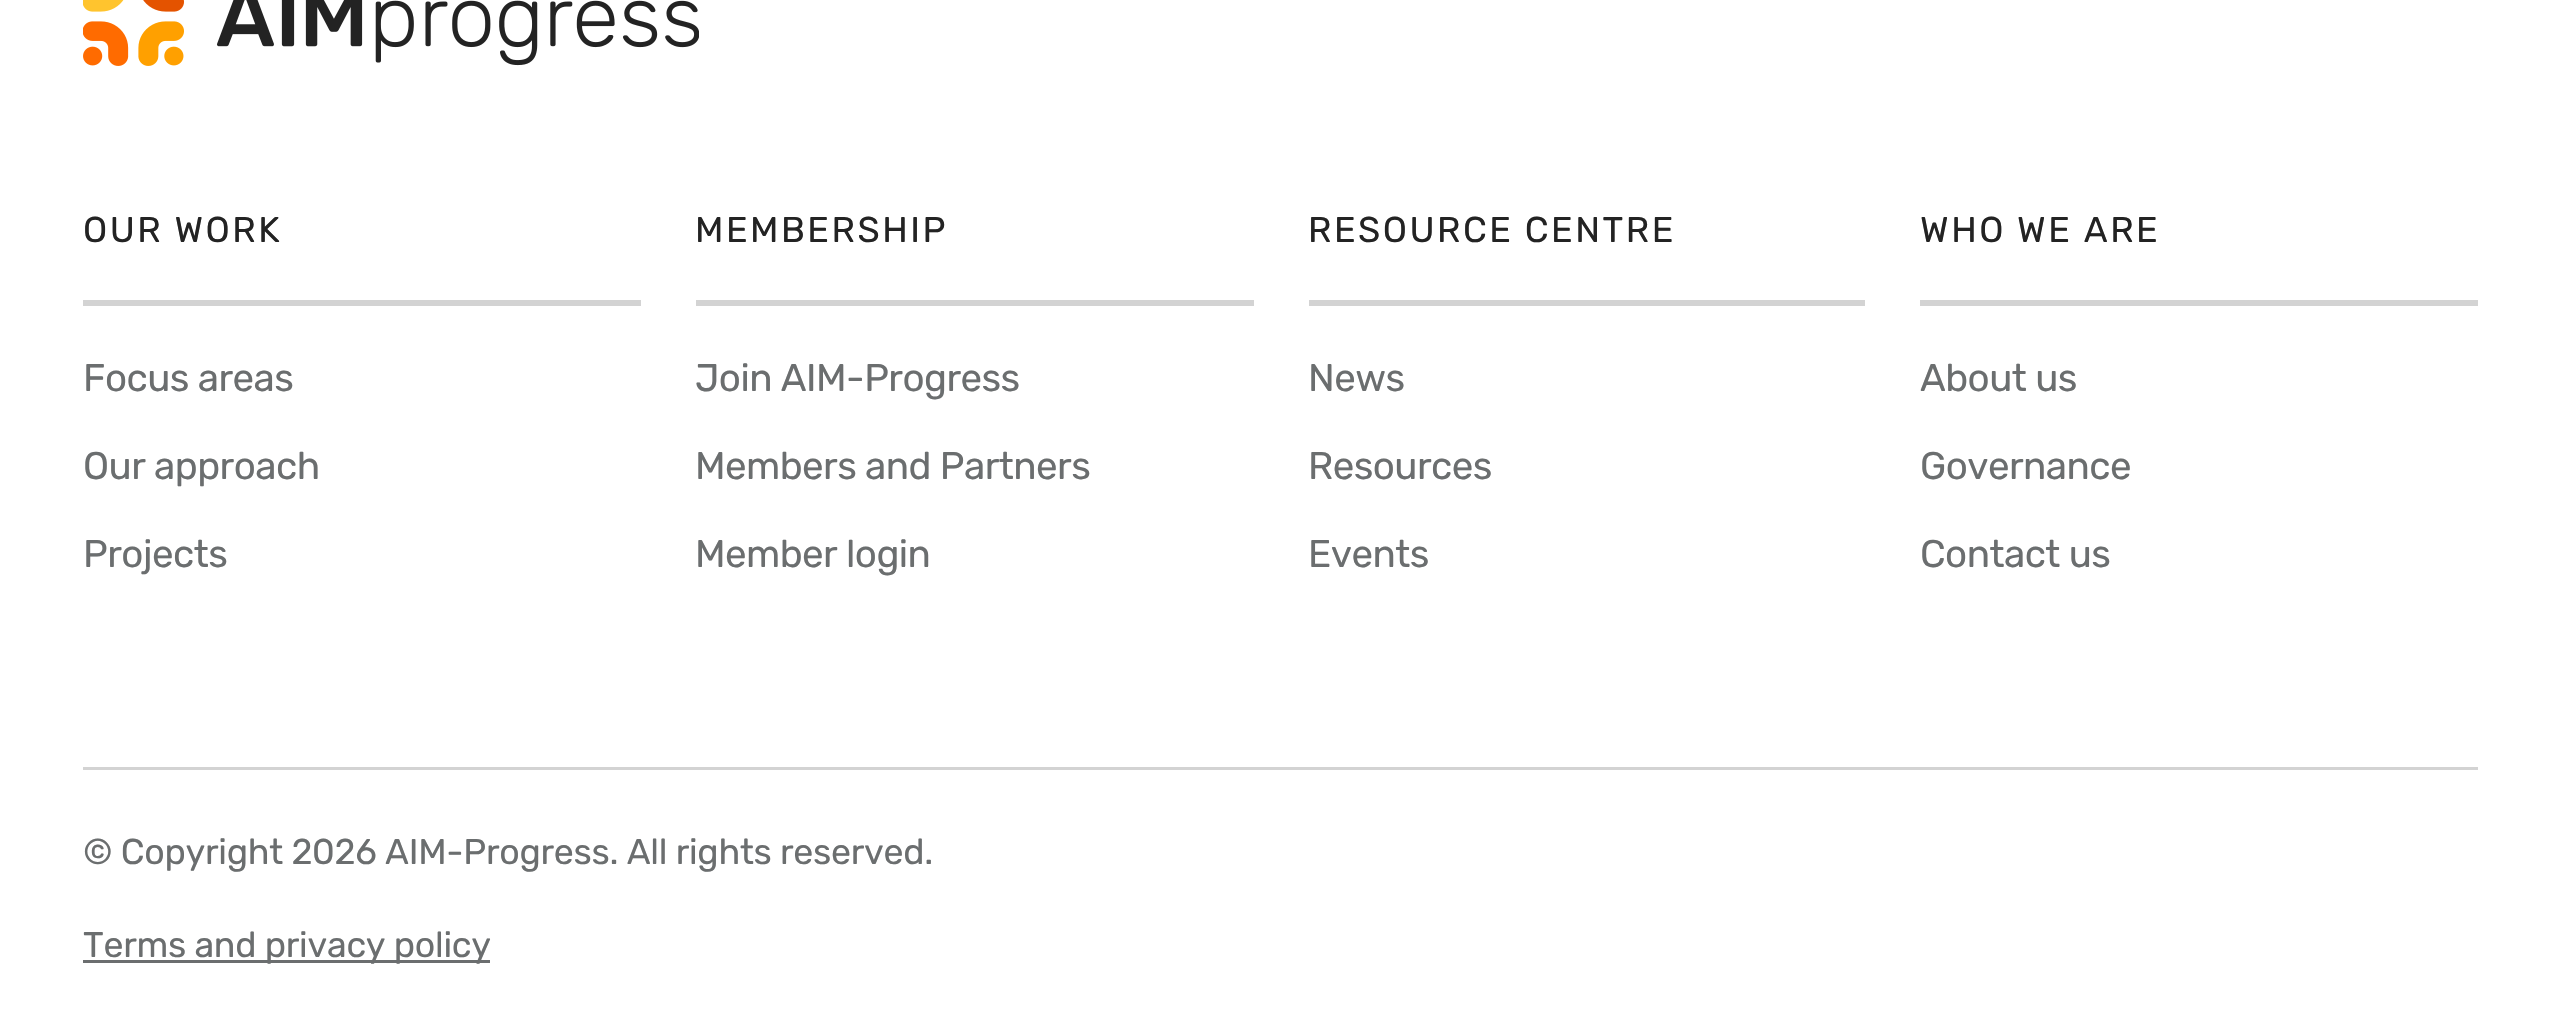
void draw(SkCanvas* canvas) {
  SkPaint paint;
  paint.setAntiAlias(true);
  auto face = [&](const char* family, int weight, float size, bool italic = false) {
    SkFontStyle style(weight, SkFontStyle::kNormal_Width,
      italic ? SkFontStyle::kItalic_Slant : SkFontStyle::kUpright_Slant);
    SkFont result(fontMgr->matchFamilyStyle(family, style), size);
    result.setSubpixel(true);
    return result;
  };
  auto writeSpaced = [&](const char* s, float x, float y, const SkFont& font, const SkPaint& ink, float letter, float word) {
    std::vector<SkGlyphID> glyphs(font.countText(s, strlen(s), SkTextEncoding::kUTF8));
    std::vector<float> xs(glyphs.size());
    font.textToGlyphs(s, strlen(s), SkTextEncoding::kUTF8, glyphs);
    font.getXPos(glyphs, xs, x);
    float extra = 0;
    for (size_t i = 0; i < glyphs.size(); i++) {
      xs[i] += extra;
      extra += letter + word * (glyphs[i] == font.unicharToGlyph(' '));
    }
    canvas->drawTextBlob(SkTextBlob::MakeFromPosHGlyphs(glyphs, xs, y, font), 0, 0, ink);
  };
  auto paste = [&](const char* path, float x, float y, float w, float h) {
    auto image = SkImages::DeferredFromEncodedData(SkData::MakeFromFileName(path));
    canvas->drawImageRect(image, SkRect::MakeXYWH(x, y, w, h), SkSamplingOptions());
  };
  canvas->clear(0xffffffff);
  paste("img/1.png", 83, 0, 616, 66);
  {
    const struct { float x, y, w, h; SkColor color; } items[] = {
      {83, 300, 558, 6, 0xffd3d3d3},
      {696, 300, 558, 6, 0xffd3d3d3},
      {1309, 300, 556, 6, 0xffd3d3d3},
      {1920, 300, 558, 6, 0xffd3d3d3},
      {83, 767, 2395, 3, 0xffd3d3d3},
      {83, 960, 407, 3, 0xff6b6e6f},
    };
    for (auto [x, y, w, h, color] : items) {
      paint.setColor(color);
      canvas->drawRect(SkRect::MakeXYWH(x, y, w, h), paint);
    }
  }
  auto f0 = face("Rubik", 400, 35.75f);
  paint.setColor(0xff232323);
  writeSpaced("OUR WORK", 83, 242, f0, paint, 2.5f, 0);
  auto f1 = face("Rubik", 400, 38.5f);
  paint.setColor(0xff6b6e6f);
  {
    const struct { const char* s; float x, y; } items[] = {
      {"Focus areas", 83, 391},
      {"Our approach", 83, 479},
      {"Projects", 83, 567},
    };
    for (auto [s, x, y] : items) {
      writeSpaced(s, x, y, f1, paint, -0.55f, 0);
    }
  }
  paint.setColor(0xff232323);
  writeSpaced("MEMBERSHIP", 695, 242, f0, paint, 2.5f, 0);
  paint.setColor(0xff6b6e6f);
  {
    const struct { const char* s; float x, y; } items[] = {
      {"Join AIM-Progress", 695, 391},
      {"Members and Partners", 695, 479},
      {"Member login", 695, 567},
    };
    for (auto [s, x, y] : items) {
      writeSpaced(s, x, y, f1, paint, -0.55f, 0);
    }
  }
  paint.setColor(0xff232323);
  writeSpaced("RESOURCE CENTRE", 1308, 242, f0, paint, 2.5f, 0);
  paint.setColor(0xff6b6e6f);
  {
    const struct { const char* s; float x, y; } items[] = {
      {"News", 1308, 391},
      {"Resources", 1308, 479},
      {"Events", 1308, 567},
    };
    for (auto [s, x, y] : items) {
      writeSpaced(s, x, y, f1, paint, -0.55f, 0);
    }
  }
  paint.setColor(0xff232323);
  writeSpaced("WHO WE ARE", 1920, 242, f0, paint, 2.5f, 0);
  paint.setColor(0xff6b6e6f);
  {
    const struct { const char* s; float x, y; } items[] = {
      {"About us", 1920, 391},
      {"Governance", 1920, 479},
      {"Contact us", 1920, 567},
    };
    for (auto [s, x, y] : items) {
      writeSpaced(s, x, y, f1, paint, -0.55f, 0);
    }
  }
  writeSpaced("© Copyright 2026 AIM-Progress. All rights reserved.", 83, 864, f0, paint, -0.28f, 0);
  writeSpaced("Terms and privacy policy", 83, 957, f0, paint, -0.28f, 0);
}
